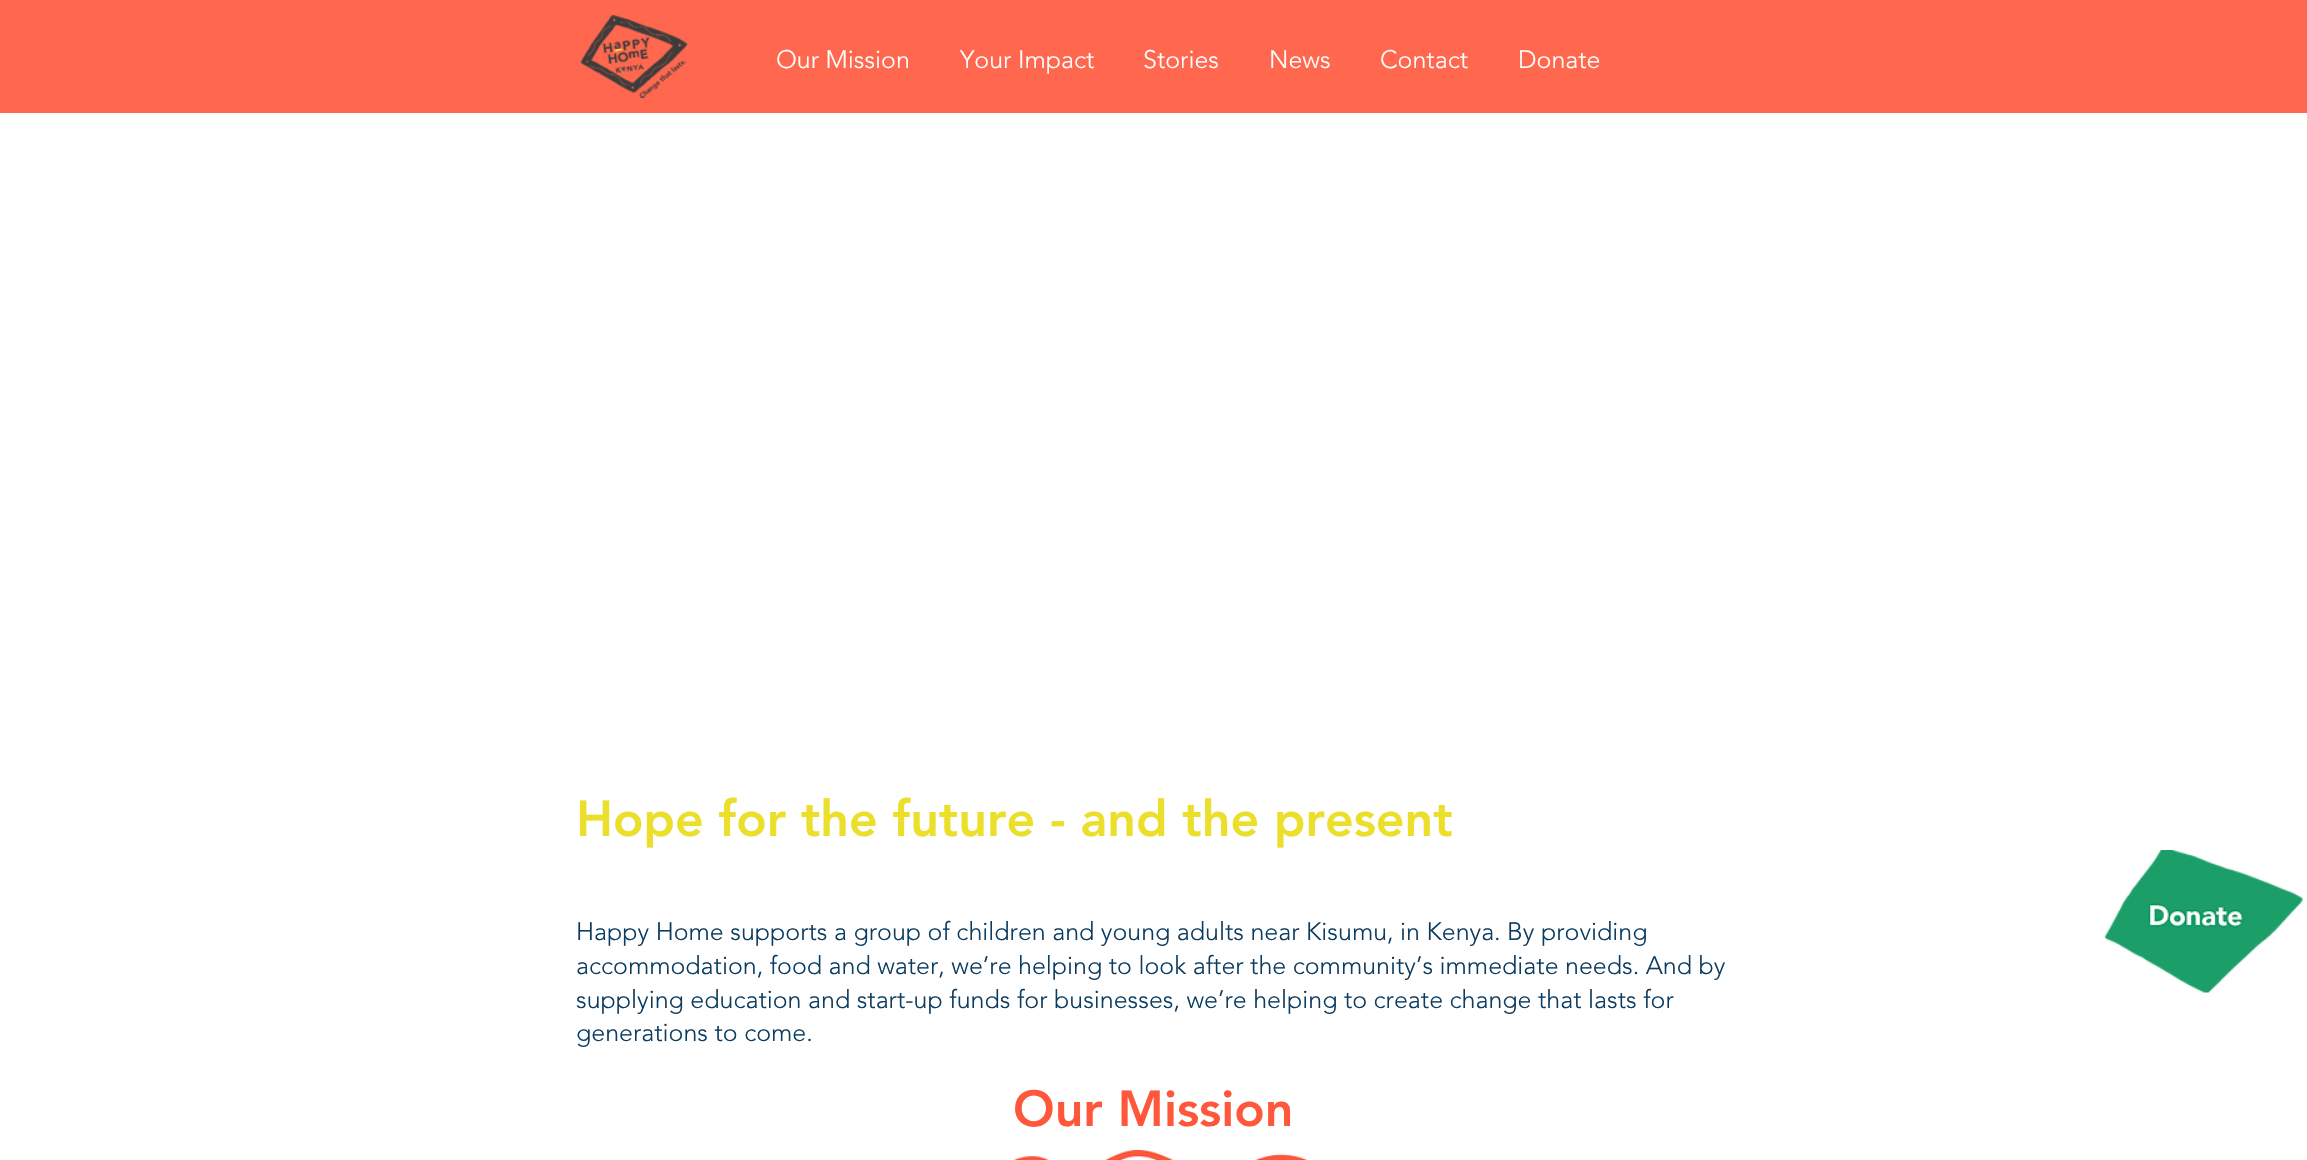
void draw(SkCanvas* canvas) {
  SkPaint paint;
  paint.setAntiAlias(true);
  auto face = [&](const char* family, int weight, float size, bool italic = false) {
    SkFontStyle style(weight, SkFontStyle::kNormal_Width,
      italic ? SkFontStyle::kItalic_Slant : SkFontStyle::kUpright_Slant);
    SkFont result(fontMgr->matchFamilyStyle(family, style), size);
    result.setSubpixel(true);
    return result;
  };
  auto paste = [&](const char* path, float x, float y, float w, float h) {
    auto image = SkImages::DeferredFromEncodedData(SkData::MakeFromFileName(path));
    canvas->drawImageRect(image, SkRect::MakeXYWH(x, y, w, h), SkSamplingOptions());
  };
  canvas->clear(0xffffffff);
  paint.setColor(0xffff684f);
  canvas->drawRect(SkRect::MakeXYWH(0, 0, 2307, 113), paint);
  paste("img/1.png", 580, 15, 108, 83);
  paste("img/2.png", 1012, 1150, 296, 10);
  paste("img/3.png", 2104, 850, 200, 143);
  auto f0 = face("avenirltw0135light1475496", 300, 25);
  paint.setColor(0xffffffff);
  {
    const struct { const char* s; float x, y; } items[] = {
      {"Our Mission", 776, 68},
      {"Your Impact", 960, 68},
      {"Stories", 1143, 68},
      {"News", 1269, 68},
      {"Contact", 1380, 68},
      {"Donate", 1518, 68},
    };
    for (auto [s, x, y] : items) {
      canvas->drawString(s, x, y, f0, paint);
    }
  }
  auto f1 = face("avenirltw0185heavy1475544", 900, 50);
  paint.setColor(0xffebdf2b);
  canvas->drawString("Hope for the future - and the present", 576, 836, f1, paint);
  paint.setColor(0xff0c3c60);
  {
    const struct { const char* s; float x, y; } items[] = {
      {"Happy Home supports a group of children and young adults near Kisumu, in Kenya. By providing", 576, 940},
      {"accommodation, food and water, we’re helping to look after the community’s immediate needs. And by", 576, 974},
      {"supplying education and start-up funds for businesses, we’re helping to create change that lasts for", 576, 1008},
      {"generations to come.", 576, 1041},
    };
    for (auto [s, x, y] : items) {
      canvas->drawString(s, x, y, f0, paint);
    }
  }
  paint.setColor(0xffff573b);
  canvas->drawString("Our Mission", 1013, 1126, f1, paint);
}
